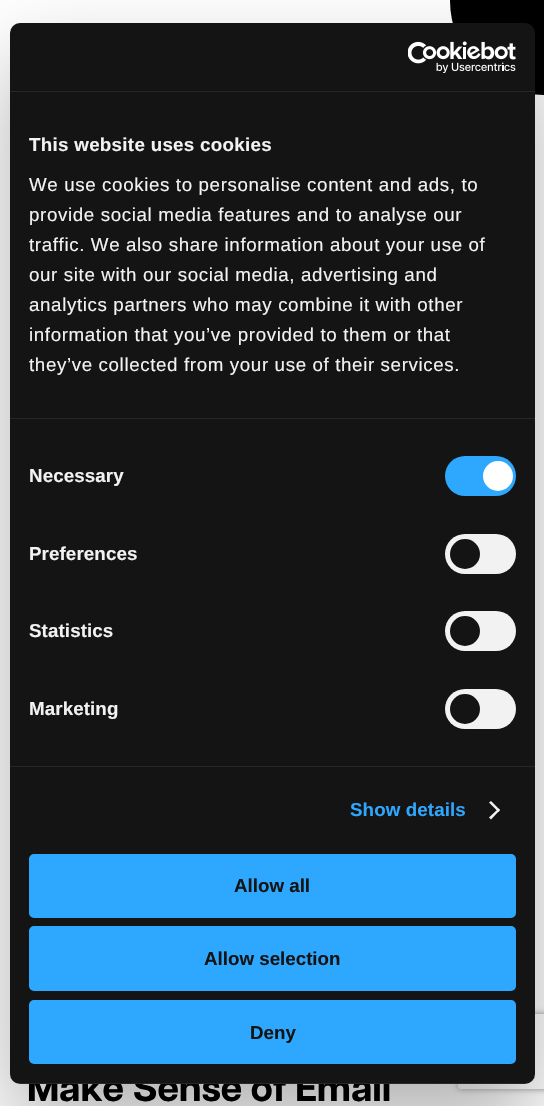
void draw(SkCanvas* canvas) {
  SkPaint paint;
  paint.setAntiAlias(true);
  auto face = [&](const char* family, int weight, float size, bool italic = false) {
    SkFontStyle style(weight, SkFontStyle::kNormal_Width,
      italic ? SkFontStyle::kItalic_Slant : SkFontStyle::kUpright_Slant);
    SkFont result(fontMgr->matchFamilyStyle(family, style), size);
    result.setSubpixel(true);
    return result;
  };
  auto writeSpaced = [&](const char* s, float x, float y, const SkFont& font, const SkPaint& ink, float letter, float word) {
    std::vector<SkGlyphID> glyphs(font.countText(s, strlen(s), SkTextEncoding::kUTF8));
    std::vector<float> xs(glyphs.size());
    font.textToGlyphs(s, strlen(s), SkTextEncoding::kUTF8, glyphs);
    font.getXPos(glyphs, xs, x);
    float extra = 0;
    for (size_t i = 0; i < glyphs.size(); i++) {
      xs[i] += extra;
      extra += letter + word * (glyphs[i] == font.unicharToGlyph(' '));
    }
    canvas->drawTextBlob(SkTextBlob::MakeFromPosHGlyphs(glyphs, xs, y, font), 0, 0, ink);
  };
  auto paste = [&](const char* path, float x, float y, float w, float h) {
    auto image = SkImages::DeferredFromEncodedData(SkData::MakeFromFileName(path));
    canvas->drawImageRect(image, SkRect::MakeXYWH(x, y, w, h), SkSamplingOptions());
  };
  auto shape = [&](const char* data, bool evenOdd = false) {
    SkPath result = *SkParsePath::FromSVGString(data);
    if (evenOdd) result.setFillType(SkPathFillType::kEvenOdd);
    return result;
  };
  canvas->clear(0xffffffff);
  paint.setColor(0xff000000);
  canvas->drawRoundRect(SkRect::MakeXYWH(450, -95, 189, 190), 95, 95, paint);
  paint.setColor(0x4d000000);
  paint.setMaskFilter(SkMaskFilter::MakeBlur(kNormal_SkBlurStyle, 42.5f));
  canvas->drawRoundRect(SkRect::MakeXYWH(10, 63, 525, 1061), 10, 10, paint);
  paint.setMaskFilter(nullptr);
  canvas->save();
  canvas->clipPath(shape("M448 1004H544V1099H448ZM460.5 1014H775.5C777 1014 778 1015 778 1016.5V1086.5C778 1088 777 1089 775.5 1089H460.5C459 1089 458 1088 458 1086.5V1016.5C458 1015 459 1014 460.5 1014Z", true), true);
  paint.setColor(0xff808080);
  paint.setMaskFilter(SkMaskFilter::MakeBlur(kNormal_SkBlurStyle, 3));
  canvas->drawRoundRect(SkRect::MakeXYWH(458, 1014, 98, 75), 2.5f, 2.5f, paint);
  paint.setMaskFilter(nullptr);
  canvas->restore();
  auto f0 = face("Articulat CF", 700, 38);
  paint.setColor(0xff000000);
  canvas->drawString("Make Sense of Email", 27, 1101, f0, paint);
  paint.setColor(0xff141414);
  canvas->drawRoundRect(SkRect::MakeXYWH(10, 23, 525, 1061), 10, 10, paint);
  paint.setColor(0xff2ea7ff);
  canvas->drawRoundRect(SkRect::MakeXYWH(30.5f, 1001.5f, 484, 61), 3.5f, 3.5f, paint);
  paint.setStroke(true);
  paint.setStrokeWidth(3);
  canvas->drawRoundRect(SkRect::MakeXYWH(30.5f, 1001.5f, 484, 61), 3.5f, 3.5f, paint);
  auto f1 = face("Liberation Sans", 700, 18.75f);
  paint.setStroke(false);
  paint.setColor(0xff141414);
  canvas->drawString("Deny", 250, 1039, f1, paint);
  paint.setColor(0xff2ea7ff);
  canvas->drawRoundRect(SkRect::MakeXYWH(30.5f, 927.5f, 484, 62), 3.5f, 3.5f, paint);
  paint.setStroke(true);
  canvas->drawRoundRect(SkRect::MakeXYWH(30.5f, 927.5f, 484, 62), 3.5f, 3.5f, paint);
  paint.setStroke(false);
  paint.setColor(0xff141414);
  canvas->drawString("Allow selection", 204, 965, f1, paint);
  paint.setColor(0xff2ea7ff);
  canvas->drawRoundRect(SkRect::MakeXYWH(30.5f, 855.5f, 484, 61), 3.5f, 3.5f, paint);
  paint.setStroke(true);
  canvas->drawRoundRect(SkRect::MakeXYWH(30.5f, 855.5f, 484, 61), 3.5f, 3.5f, paint);
  paint.setStroke(false);
  paint.setColor(0xff141414);
  canvas->drawString("Allow all", 234, 892, f1, paint);
  canvas->save();
  canvas->clipPath(shape("M20 23H525C530.5 23 535 27.5 535 33V1074C535 1079.5 530.5 1084 525 1084H20C14.5 1084 10 1079.5 10 1074V33C10 27.5 14.5 23 20 23Z"), true);
  paint.setColor(0x14ffffff);
  canvas->drawRect(SkRect::MakeXYWH(10, 1083, 525, 1), paint);
  canvas->restore();
  paint.setColor(0xfff2f2f2);
  canvas->drawPath(shape("M491 801L500 810L498.5 812L489 802.5Z"), paint);
  canvas->drawPath(shape("M498.5 808.5L500 810L491 819.5L489 817.5Z"), paint);
  canvas->drawRoundRect(SkRect::MakeXYWH(445, 689, 71, 40), 20, 20, paint);
  paint.setColor(0xff141414);
  canvas->drawCircle(465, 709, 15, paint);
  paint.setColor(0xfff2f2f2);
  canvas->drawRoundRect(SkRect::MakeXYWH(445, 611, 71, 40), 20, 20, paint);
  paint.setColor(0xff141414);
  canvas->drawCircle(465, 631, 15, paint);
  paint.setColor(0xfff2f2f2);
  canvas->drawRoundRect(SkRect::MakeXYWH(445, 534, 71, 40), 20, 20, paint);
  paint.setColor(0xff141414);
  canvas->drawCircle(465, 554, 15, paint);
  paint.setColor(0xff2ea7ff);
  canvas->drawRoundRect(SkRect::MakeXYWH(445, 456, 71, 40), 20, 20, paint);
  paint.setColor(0xffffffff);
  canvas->drawCircle(498, 476, 15, paint);
  auto f2 = face("Liberation Sans", 400, 18.75f);
  paint.setColor(0xfff2f2f2);
  {
    const struct { const char* s; float x, y; } items[] = {
      {"they’ve collected from your use of their services.", 29, 371},
      {"information that you’ve provided to them or that", 29, 341},
      {"analytics partners who may combine it with other", 29, 311},
      {"our site with our social media, advertising and", 29, 281},
      {"traffic. We also share information about your use of", 29, 251},
      {"provide social media features and to analyse our", 29, 221},
      {"We use cookies to personalise content and ads, to", 29, 191},
    };
    for (auto [s, x, y] : items) {
      writeSpaced(s, x, y, f2, paint, 0.62f, 0);
    }
  }
  writeSpaced("This website uses cookies", 29, 151, f1, paint, 0.3f, 0);
  paint.setColor(0xff272727);
  canvas->drawRect(SkRect::MakeXYWH(10, 418, 525, 1), paint);
  paint.setColor(0xff2ea7ff);
  writeSpaced("Show details", 350, 816, f1, paint, 0.1f, 0);
  paint.setColor(0xfff2f2f2);
  {
    const struct { const char* s; float x, y; } items[] = {
      {"Marketing", 29, 715},
      {"Statistics", 29, 637},
      {"Preferences", 29, 560},
      {"Necessary", 29, 482},
    };
    for (auto [s, x, y] : items) {
      writeSpaced(s, x, y, f1, paint, 0.1f, 0);
    }
  }
  paint.setColor(0xff272727);
  canvas->drawRect(SkRect::MakeXYWH(10, 766, 525, 1), paint);
  paste("img/1.png", 408, 41, 108, 32);
  canvas->drawRect(SkRect::MakeXYWH(10, 91, 525, 1), paint);
}
